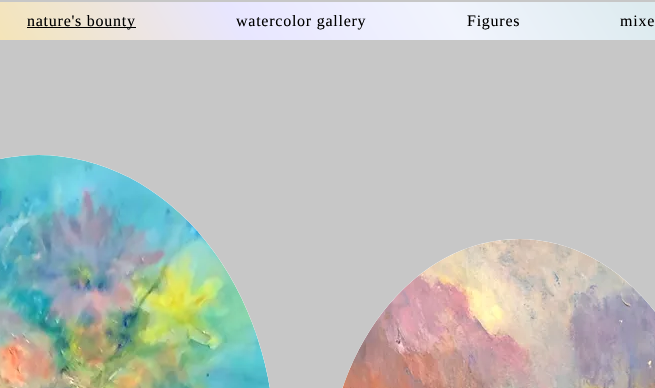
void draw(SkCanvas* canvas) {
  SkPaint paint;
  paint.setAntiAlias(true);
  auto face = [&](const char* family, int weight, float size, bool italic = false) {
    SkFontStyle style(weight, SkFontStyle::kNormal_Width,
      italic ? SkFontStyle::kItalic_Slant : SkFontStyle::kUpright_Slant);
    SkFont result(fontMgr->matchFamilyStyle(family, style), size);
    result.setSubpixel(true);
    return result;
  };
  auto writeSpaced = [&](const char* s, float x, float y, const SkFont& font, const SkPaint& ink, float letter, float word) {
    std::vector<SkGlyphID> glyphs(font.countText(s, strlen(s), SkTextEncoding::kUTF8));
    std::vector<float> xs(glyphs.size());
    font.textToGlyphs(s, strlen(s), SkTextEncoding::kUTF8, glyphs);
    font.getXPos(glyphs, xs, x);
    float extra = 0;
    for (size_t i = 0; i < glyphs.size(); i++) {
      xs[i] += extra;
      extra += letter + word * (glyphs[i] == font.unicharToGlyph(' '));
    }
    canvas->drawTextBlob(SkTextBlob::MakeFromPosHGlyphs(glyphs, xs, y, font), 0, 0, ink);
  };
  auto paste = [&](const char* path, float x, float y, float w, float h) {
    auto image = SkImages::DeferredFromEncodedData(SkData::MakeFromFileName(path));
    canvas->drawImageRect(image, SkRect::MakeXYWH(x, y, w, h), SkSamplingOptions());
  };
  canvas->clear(0xffc7c7c7);
  {
    const SkColor colors[] = {0xffffa685, 0xfffce387, 0xffe8e6ff, 0xfff1f4fd, 0xffddebef, 0xffd6e7ec, 0xfff1f0ff, 0xffa9a5e8};
    const float stops[] = {0, 0.13f, 0.36f, 0.48f, 0.59f, 0.76f, 0.86f, 0.99f};
    const SkPoint ends[] = {{-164, 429}, {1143, -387}};
    paint.setShader(SkGradientShader::MakeLinear(ends, colors, stops, 8, SkTileMode::kClamp));
    paint.setAlpha(255);
  }
  canvas->drawRect(SkRect::MakeXYWH(0, 2, 655, 38), paint);
  paint.setShader(nullptr);
  paint.setColor(0xff000000);
  canvas->drawRect(SkRect::MakeXYWH(27, 27, 109, 1), paint);
  paint.setColor(0xffffffff);
  canvas->drawOval(SkRect::MakeXYWH(-198, 155, 473, 587), paint);
  paste("img/1.png", 0, 155, 270, 233);
  canvas->drawOval(SkRect::MakeXYWH(326, 239, 386, 500), paint);
  paste("img/2.png", 342, 239, 313, 149);
  auto f0 = face("Liberation Serif", 400, 16);
  paint.setColor(0xff000000);
  {
    const struct { const char* s; float x, y; } items[] = {
      {"nature's bounty", 27, 26},
      {"watercolor gallery", 236, 26},
      {"Figures", 467, 26},
      {"mixe", 620, 26},
    };
    for (auto [s, x, y] : items) {
      writeSpaced(s, x, y, f0, paint, 0.75f, 0);
    }
  }
}
